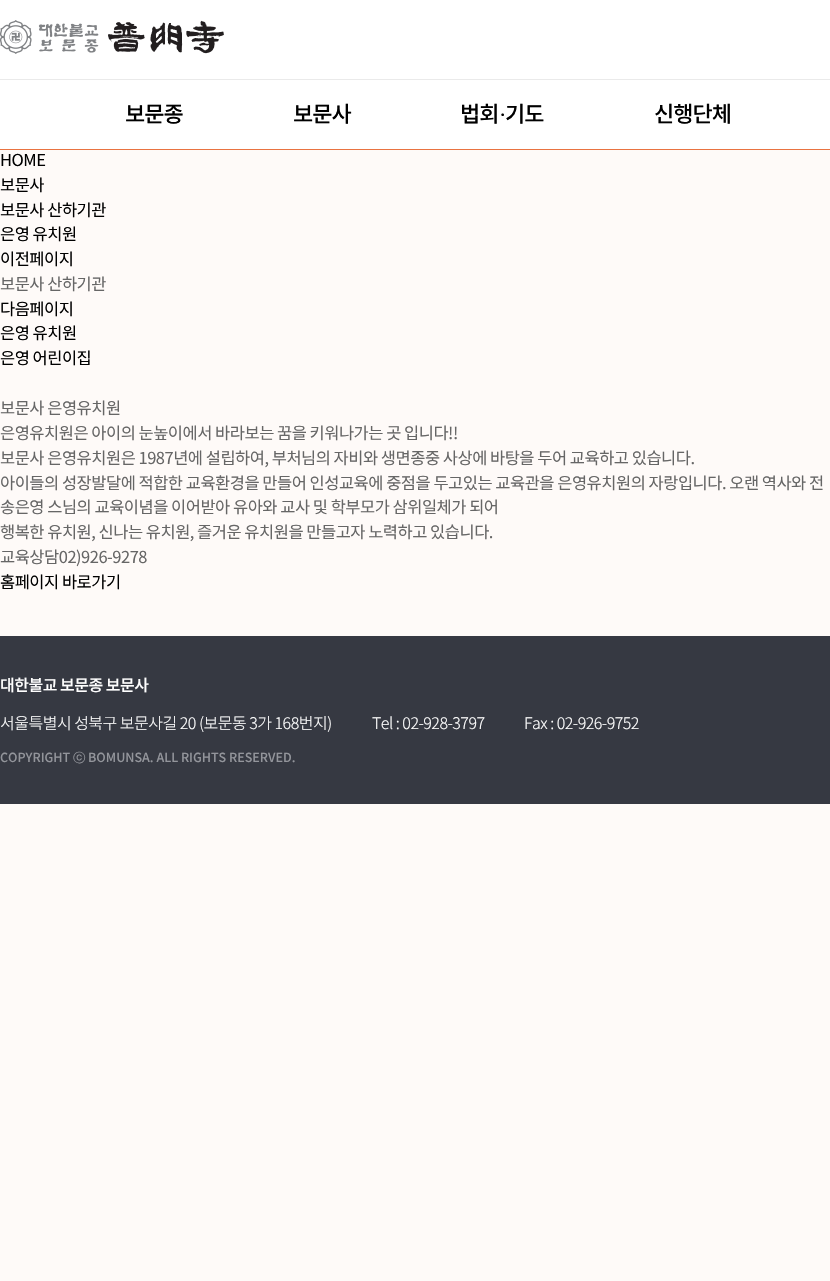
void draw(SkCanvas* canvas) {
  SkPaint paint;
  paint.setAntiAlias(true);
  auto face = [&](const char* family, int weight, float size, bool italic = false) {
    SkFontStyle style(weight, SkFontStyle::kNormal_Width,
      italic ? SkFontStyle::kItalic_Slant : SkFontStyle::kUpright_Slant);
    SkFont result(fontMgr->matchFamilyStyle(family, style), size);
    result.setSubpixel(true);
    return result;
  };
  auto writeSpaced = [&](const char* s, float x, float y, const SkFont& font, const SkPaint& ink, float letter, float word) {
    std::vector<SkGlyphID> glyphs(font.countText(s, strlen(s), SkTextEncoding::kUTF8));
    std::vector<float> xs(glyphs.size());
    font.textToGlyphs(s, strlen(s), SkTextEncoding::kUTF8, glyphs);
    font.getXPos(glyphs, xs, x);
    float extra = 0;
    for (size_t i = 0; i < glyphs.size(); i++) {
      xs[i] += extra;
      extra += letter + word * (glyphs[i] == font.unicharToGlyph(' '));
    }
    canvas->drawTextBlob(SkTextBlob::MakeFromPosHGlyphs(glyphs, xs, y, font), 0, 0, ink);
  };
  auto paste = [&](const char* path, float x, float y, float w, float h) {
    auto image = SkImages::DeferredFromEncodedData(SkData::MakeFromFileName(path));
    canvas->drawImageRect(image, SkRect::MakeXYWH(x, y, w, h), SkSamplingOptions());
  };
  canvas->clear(0xfffefaf8);
  paint.setColor(0xffffffff);
  canvas->drawRect(SkRect::MakeXYWH(0, 0, 830, 149), paint);
  paint.setColor(0xffeaeaea);
  canvas->drawRect(SkRect::MakeXYWH(0, 79, 830, 1), paint);
  paste("img/1.png", 0, 20, 224, 34);
  paint.setColor(0xffe97341);
  canvas->drawRect(SkRect::MakeXYWH(0, 149, 830, 1), paint);
  paint.setColor(0xff363942);
  canvas->drawRect(SkRect::MakeXYWH(0, 636, 830, 168), paint);
  auto f0 = face("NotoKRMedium", 500, 22);
  paint.setColor(0xff000000);
  {
    const struct { const char* s; float x, y; } items[] = {
      {"보문종", 125, 122},
      {"보문사", 293, 122},
      {"법회", 460, 122},
    };
    for (auto [s, x, y] : items) {
      writeSpaced(s, x, y, f0, paint, -1, 0);
    }
  }
  auto f1 = face("Liberation Serif", 400, 22);
  writeSpaced("·", 499, 122, f1, paint, -1, 0);
  writeSpaced("기도", 505, 122, f0, paint, -1, 0);
  writeSpaced("신행단체", 654, 122, f0, paint, -1, 0);
  auto f2 = face("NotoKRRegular", 400, 16.5f);
  {
    const struct { const char* s; float x, y; } items[] = {
      {"HOME", 0, 166},
      {"보문사", 0, 191},
      {"보문사 산하기관", 0, 216},
      {"은영 유치원", 0, 240},
      {"이전페이지", 0, 265},
    };
    for (auto [s, x, y] : items) {
      writeSpaced(s, x, y, f2, paint, -0.5f, 0);
    }
  }
  paint.setColor(0xff666666);
  writeSpaced("보문사 산하기관", 0, 290, f2, paint, -0.5f, 0);
  paint.setColor(0xff000000);
  {
    const struct { const char* s; float x, y; } items[] = {
      {"다음페이지", 0, 315},
      {"은영 유치원", 0, 339},
      {"은영 어린이집", 0, 364},
    };
    for (auto [s, x, y] : items) {
      writeSpaced(s, x, y, f2, paint, -0.5f, 0);
    }
  }
  paint.setColor(0xff666666);
  {
    const struct { const char* s; float x, y; } items[] = {
      {"보문사 은영유치원", 0, 414},
      {"은영유치원은 아이의 눈높이에서 바라보는 꿈을 키워나가는 곳 입니다!!", 0, 439},
      {"보문사 은영유치원은 1987년에 설립하여, 부처님의 자비와 생면종중 사상에 바탕을 두어 교육하고 있습니다.", 0, 464},
      {"아이들의 성장발달에 적합한 교육환경을 만들어 인성교육에 중점을 두고있는 교육관을 은영유치원의 자랑입니다. 오랜 역사와 전", 0, 489},
      {"송은영 스님의 교육이념을 이어받아 유아와 교사 및 학부모가 삼위일체가 되어", 0, 513},
      {"행복한 유치원, 신나는 유치원, 즐거운 유치원을 만들고자 노력하고 있습니다.", 0, 538},
      {"교육상담02)926-9278", 0, 563},
    };
    for (auto [s, x, y] : items) {
      writeSpaced(s, x, y, f2, paint, -0.5f, 0);
    }
  }
  paint.setColor(0xff000000);
  writeSpaced("홈페이지 바로가기", 0, 588, f2, paint, -0.5f, 0);
  auto f3 = face("NotoKRMedium", 500, 16);
  paint.setColor(0xffffffff);
  writeSpaced("대한불교 보문종 보문사", 0, 691, f3, paint, -0.5f, 0);
  auto f4 = face("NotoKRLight", 300, 16);
  {
    const struct { const char* s; float x, y; } items[] = {
      {"서울특별시 성북구 보문사길 20 (보문동 3가 168번지)", 0, 729},
      {"Tel : 02-928-3797", 372, 729},
      {"Fax : 02-926-9752", 524, 729},
    };
    for (auto [s, x, y] : items) {
      writeSpaced(s, x, y, f4, paint, -0.5f, 0);
    }
  }
  auto f5 = face("NotoKRMedium", 500, 12.5f);
  paint.setColor(0xff93959b);
  canvas->drawString("COPYRIGHT", 0, 762, f5, paint);
  auto f6 = face("WenQuanYi Zen Hei", 500, 12.5f);
  canvas->drawString("ⓒ", 73, 762, f6, paint);
  canvas->drawString("BOMUNSA. ALL RIGHTS RESERVED.", 88, 762, f5, paint);
}
